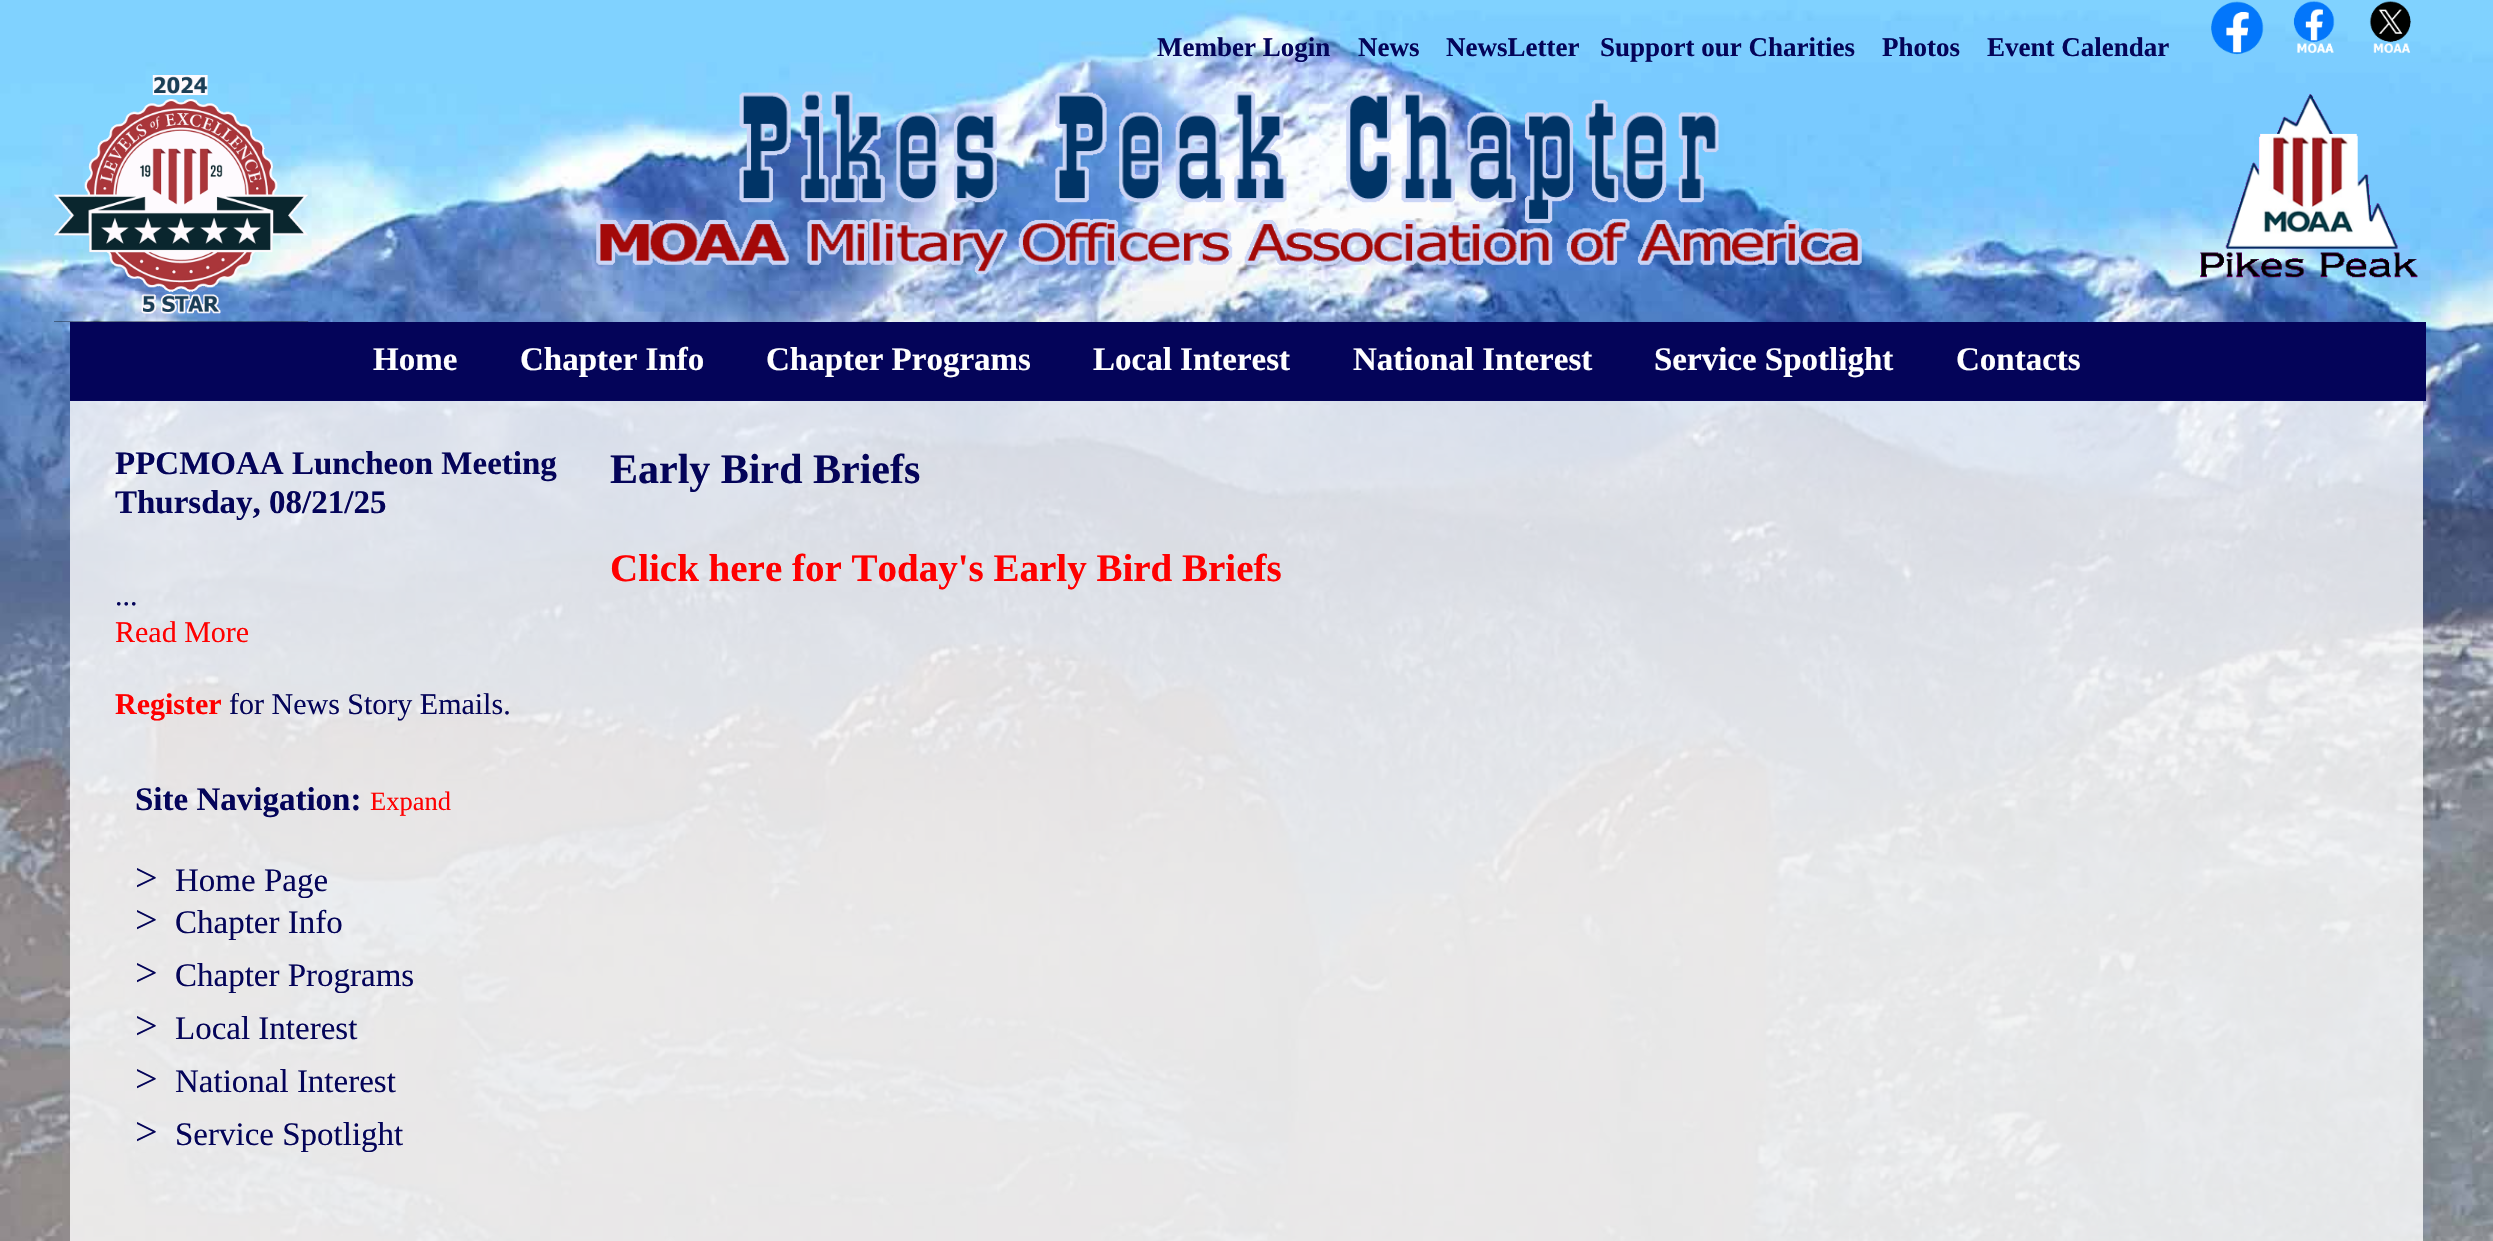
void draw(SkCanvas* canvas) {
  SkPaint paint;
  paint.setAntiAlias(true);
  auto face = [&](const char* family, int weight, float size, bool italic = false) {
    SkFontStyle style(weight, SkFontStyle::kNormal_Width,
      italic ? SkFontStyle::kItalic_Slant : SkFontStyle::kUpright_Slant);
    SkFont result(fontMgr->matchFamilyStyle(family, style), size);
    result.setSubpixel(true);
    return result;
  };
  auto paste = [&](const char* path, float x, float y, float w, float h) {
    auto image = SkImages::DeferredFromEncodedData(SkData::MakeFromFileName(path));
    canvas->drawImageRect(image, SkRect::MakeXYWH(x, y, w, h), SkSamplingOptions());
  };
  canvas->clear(0xffffffff);
  paste("img/1.png", 0, 0, 2493, 1241);
  paste("img/2.png", 2211, 1, 53, 54);
  paste("img/3.png", 2293, 1, 42, 52);
  paste("img/4.png", 2369, 1, 42, 52);
  paste("img/5.png", 54, 75, 255, 247);
  paste("img/6.png", 596, 91, 1266, 184);
  paste("img/7.png", 2200, 94, 218, 184);
  paint.setColor(0xff040459);
  canvas->drawRect(SkRect::MakeXYWH(70, 322, 2356, 79), paint);
  paint.setColor(0xccffffff);
  canvas->drawRect(SkRect::MakeXYWH(70, 401, 2353, 840), paint);
  auto f0 = face("Liberation Serif", 700, 27);
  paint.setColor(0xff040459);
  {
    const struct { const char* s; float x, y; } items[] = {
      {"Member Login", 1157, 56},
      {"News", 1358, 56},
      {"NewsLetter", 1446, 56},
      {"Support our Charities", 1600, 56},
      {"Photos", 1882, 56},
      {"Event Calendar", 1987, 56},
    };
    for (auto [s, x, y] : items) {
      canvas->drawString(s, x, y, f0, paint);
    }
  }
  auto f1 = face("Liberation Serif", 700, 33);
  paint.setColor(0xffffffff);
  {
    const struct { const char* s; float x, y; } items[] = {
      {"Home", 373, 370},
      {"Chapter Info", 520, 370},
      {"Chapter Programs", 766, 370},
      {"Local Interest", 1093, 370},
      {"National Interest", 1353, 370},
      {"Service Spotlight", 1654, 370},
      {"Contacts", 1956, 370},
    };
    for (auto [s, x, y] : items) {
      canvas->drawString(s, x, y, f1, paint);
    }
  }
  paint.setColor(0xff040459);
  canvas->drawString("PPCMOAA Luncheon Meeting", 115, 474, f1, paint);
  canvas->drawString("Thursday, 08/21/25", 115, 513, f1, paint);
  auto f2 = face("Liberation Serif", 400, 30);
  canvas->drawString("...", 115, 605, f2, paint);
  paint.setColor(0xffff0000);
  canvas->drawString("Read More", 115, 642, f2, paint);
  auto f3 = face("Liberation Serif", 700, 30);
  canvas->drawString("Register", 115, 714, f3, paint);
  paint.setColor(0xff040459);
  canvas->drawString("for News Story Emails.", 229, 714, f2, paint);
  canvas->drawString("Site Navigation:", 135, 810, f1, paint);
  auto f4 = face("Liberation Serif", 400, 26.5f);
  paint.setColor(0xffff0000);
  canvas->drawString("Expand", 370, 810, f4, paint);
  auto f5 = face("Liberation Serif", 400, 40);
  paint.setColor(0xff040459);
  canvas->drawString(">", 135, 891, f5, paint);
  auto f6 = face("Liberation Serif", 400, 33);
  canvas->drawString("Home Page", 175, 891, f6, paint);
  canvas->drawString(">", 135, 933, f5, paint);
  canvas->drawString("Chapter Info", 175, 933, f6, paint);
  canvas->drawString(">", 135, 986, f5, paint);
  canvas->drawString("Chapter Programs", 175, 986, f6, paint);
  canvas->drawString(">", 135, 1039, f5, paint);
  canvas->drawString("Local Interest", 175, 1039, f6, paint);
  canvas->drawString(">", 135, 1092, f5, paint);
  canvas->drawString("National Interest", 175, 1092, f6, paint);
  canvas->drawString(">", 135, 1145, f5, paint);
  canvas->drawString("Service Spotlight", 175, 1145, f6, paint);
  auto f7 = face("Liberation Serif", 700, 42);
  canvas->drawString("Early Bird Briefs", 610, 483, f7, paint);
  auto f8 = face("Liberation Serif", 700, 39);
  paint.setColor(0xffff0000);
  canvas->drawString("Click here for Today's Early Bird Briefs", 610, 581, f8, paint);
}
